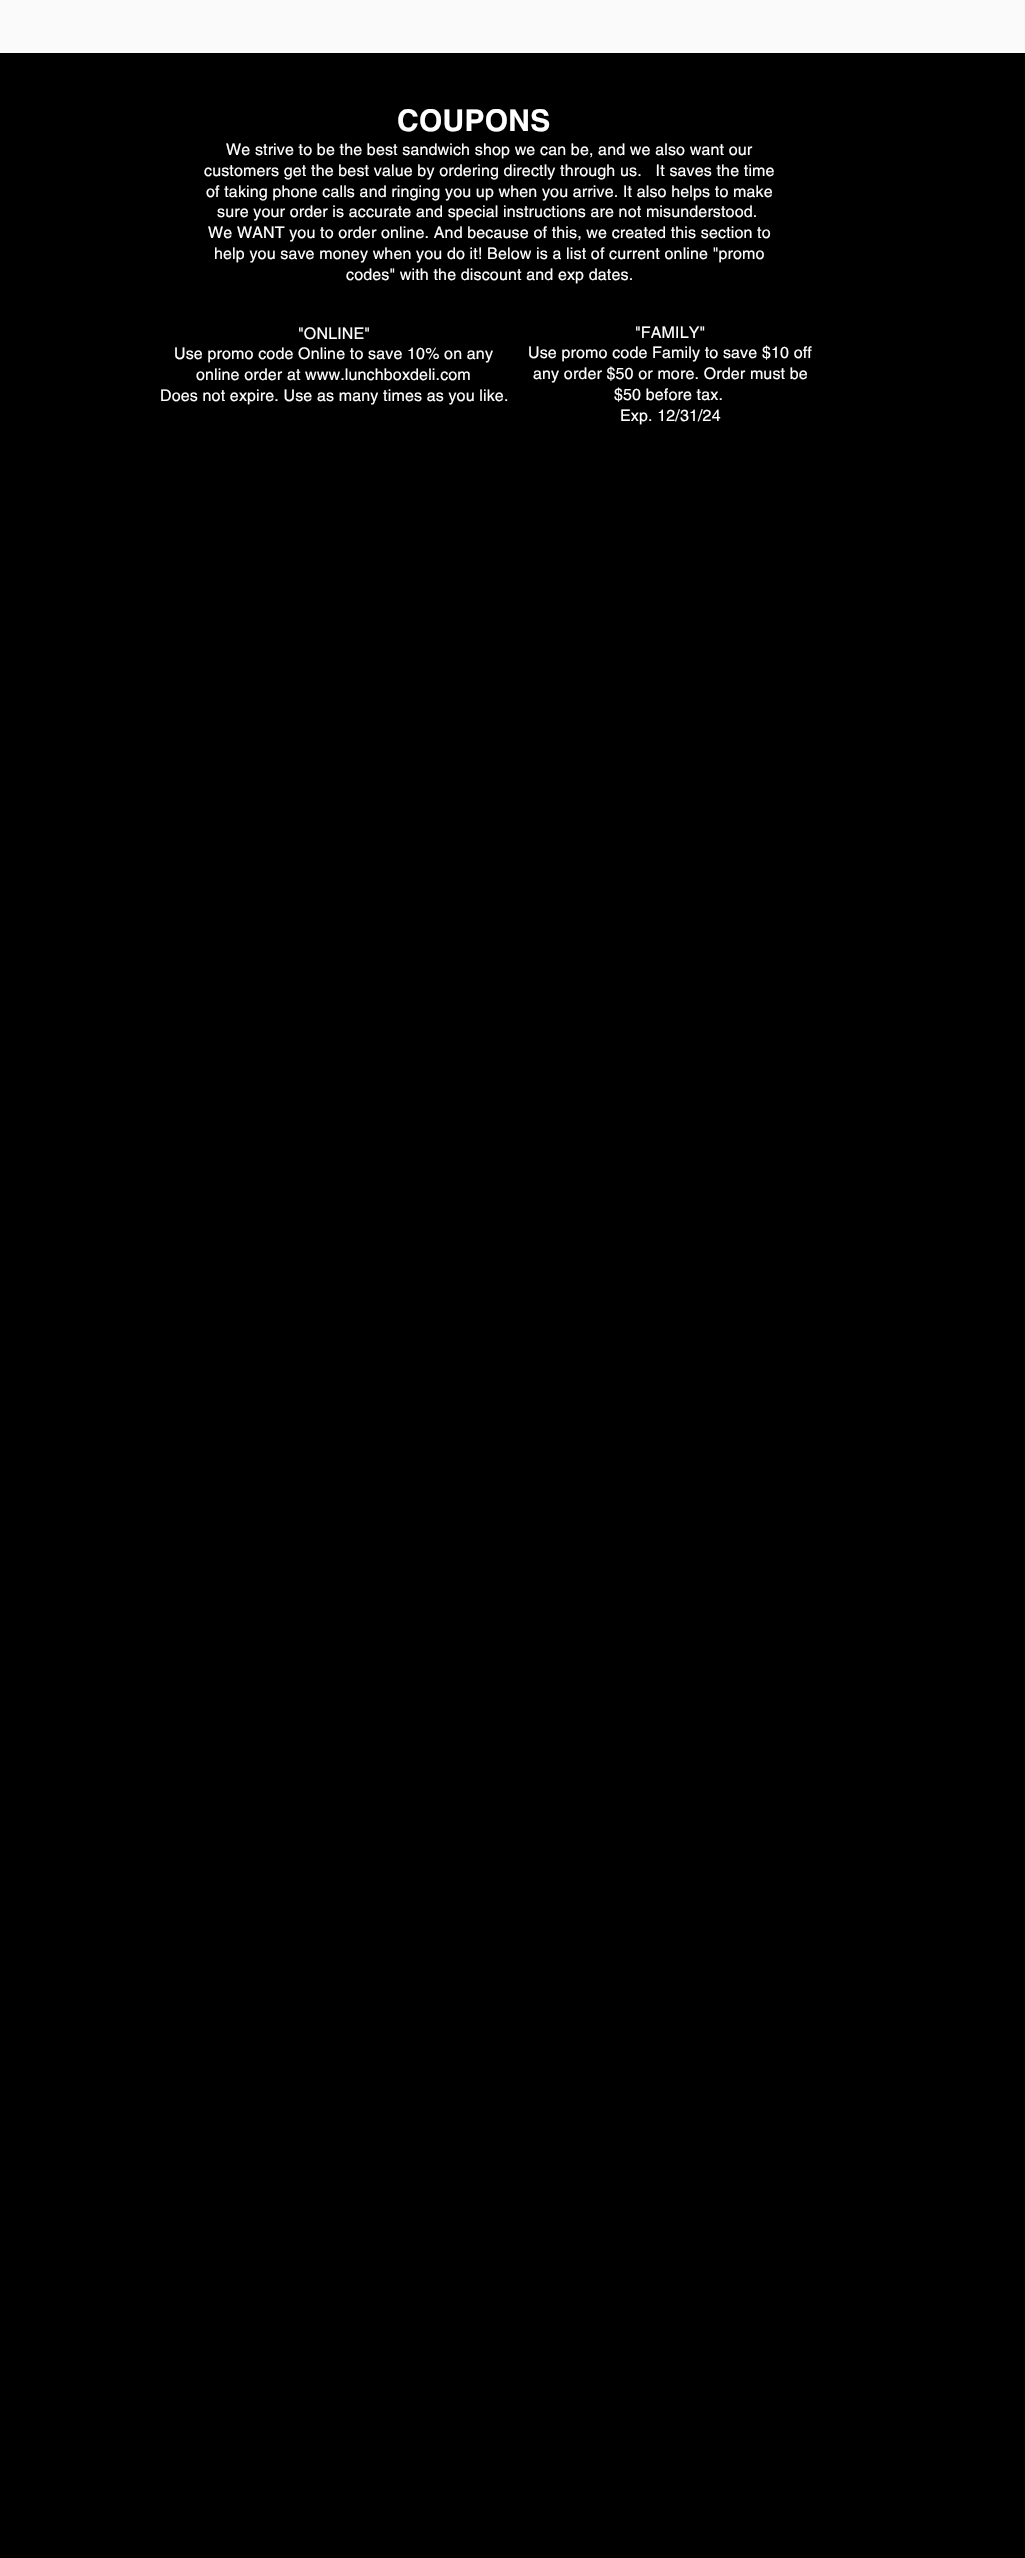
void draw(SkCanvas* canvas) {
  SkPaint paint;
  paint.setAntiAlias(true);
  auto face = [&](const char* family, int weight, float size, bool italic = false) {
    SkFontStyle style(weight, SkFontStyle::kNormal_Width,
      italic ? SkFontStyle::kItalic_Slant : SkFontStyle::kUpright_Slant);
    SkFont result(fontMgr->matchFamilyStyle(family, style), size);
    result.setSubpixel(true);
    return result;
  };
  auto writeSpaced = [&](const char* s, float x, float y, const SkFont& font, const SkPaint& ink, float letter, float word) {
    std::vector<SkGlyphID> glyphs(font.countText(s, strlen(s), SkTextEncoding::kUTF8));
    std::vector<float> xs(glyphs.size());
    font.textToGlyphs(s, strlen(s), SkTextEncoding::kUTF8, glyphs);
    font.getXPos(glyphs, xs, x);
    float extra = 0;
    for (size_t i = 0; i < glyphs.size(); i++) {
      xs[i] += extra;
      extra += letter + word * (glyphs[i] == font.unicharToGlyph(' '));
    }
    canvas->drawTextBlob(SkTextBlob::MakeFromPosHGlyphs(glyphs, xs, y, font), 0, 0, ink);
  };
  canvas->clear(0xff000000);
  paint.setColor(0xfffafafa);
  canvas->drawRect(SkRect::MakeXYWH(0, 0, 1025, 53), paint);
  auto f0 = face("helvetica", 700, 30);
  paint.setColor(0xffffffff);
  writeSpaced("COUPONS", 397, 131, f0, paint, 0.25f, 0);
  auto f1 = face("helvetica", 400, 16);
  {
    const struct { const char* s; float x, y; } items[] = {
      {"We strive to be the best sandwich shop we can be, and we also want our", 226, 155},
      {"customers get the best value by ordering directly through us.   It saves the time", 204, 176},
      {"of taking phone calls and ringing you up when you arrive. It also helps to make", 206, 197},
      {"sure your order is accurate and special instructions are not misunderstood.", 217, 217},
      {"We WANT you to order online. And because of this, we created this section to", 208, 238},
      {"help you save money when you do it! Below is a list of current online \"promo", 214, 259},
      {"codes\" with the discount and exp dates.", 346, 280},
      {"\"ONLINE\"", 298, 339},
      {"Use promo code Online to save 10% on any", 174, 359},
      {"online order at www.lunchboxdeli.com", 196, 380},
      {"Does not expire. Use as many times as you like.", 160, 401},
      {"\"FAMILY\"", 635, 338},
      {"Use promo code Family to save $10 off", 528, 358},
      {"any order $50 or more. Order must be", 533, 379},
      {"$50 before tax.", 614, 400},
      {"Exp. 12/31/24", 620, 421},
    };
    for (auto [s, x, y] : items) {
      writeSpaced(s, x, y, f1, paint, 0.15f, 0);
    }
  }
}
